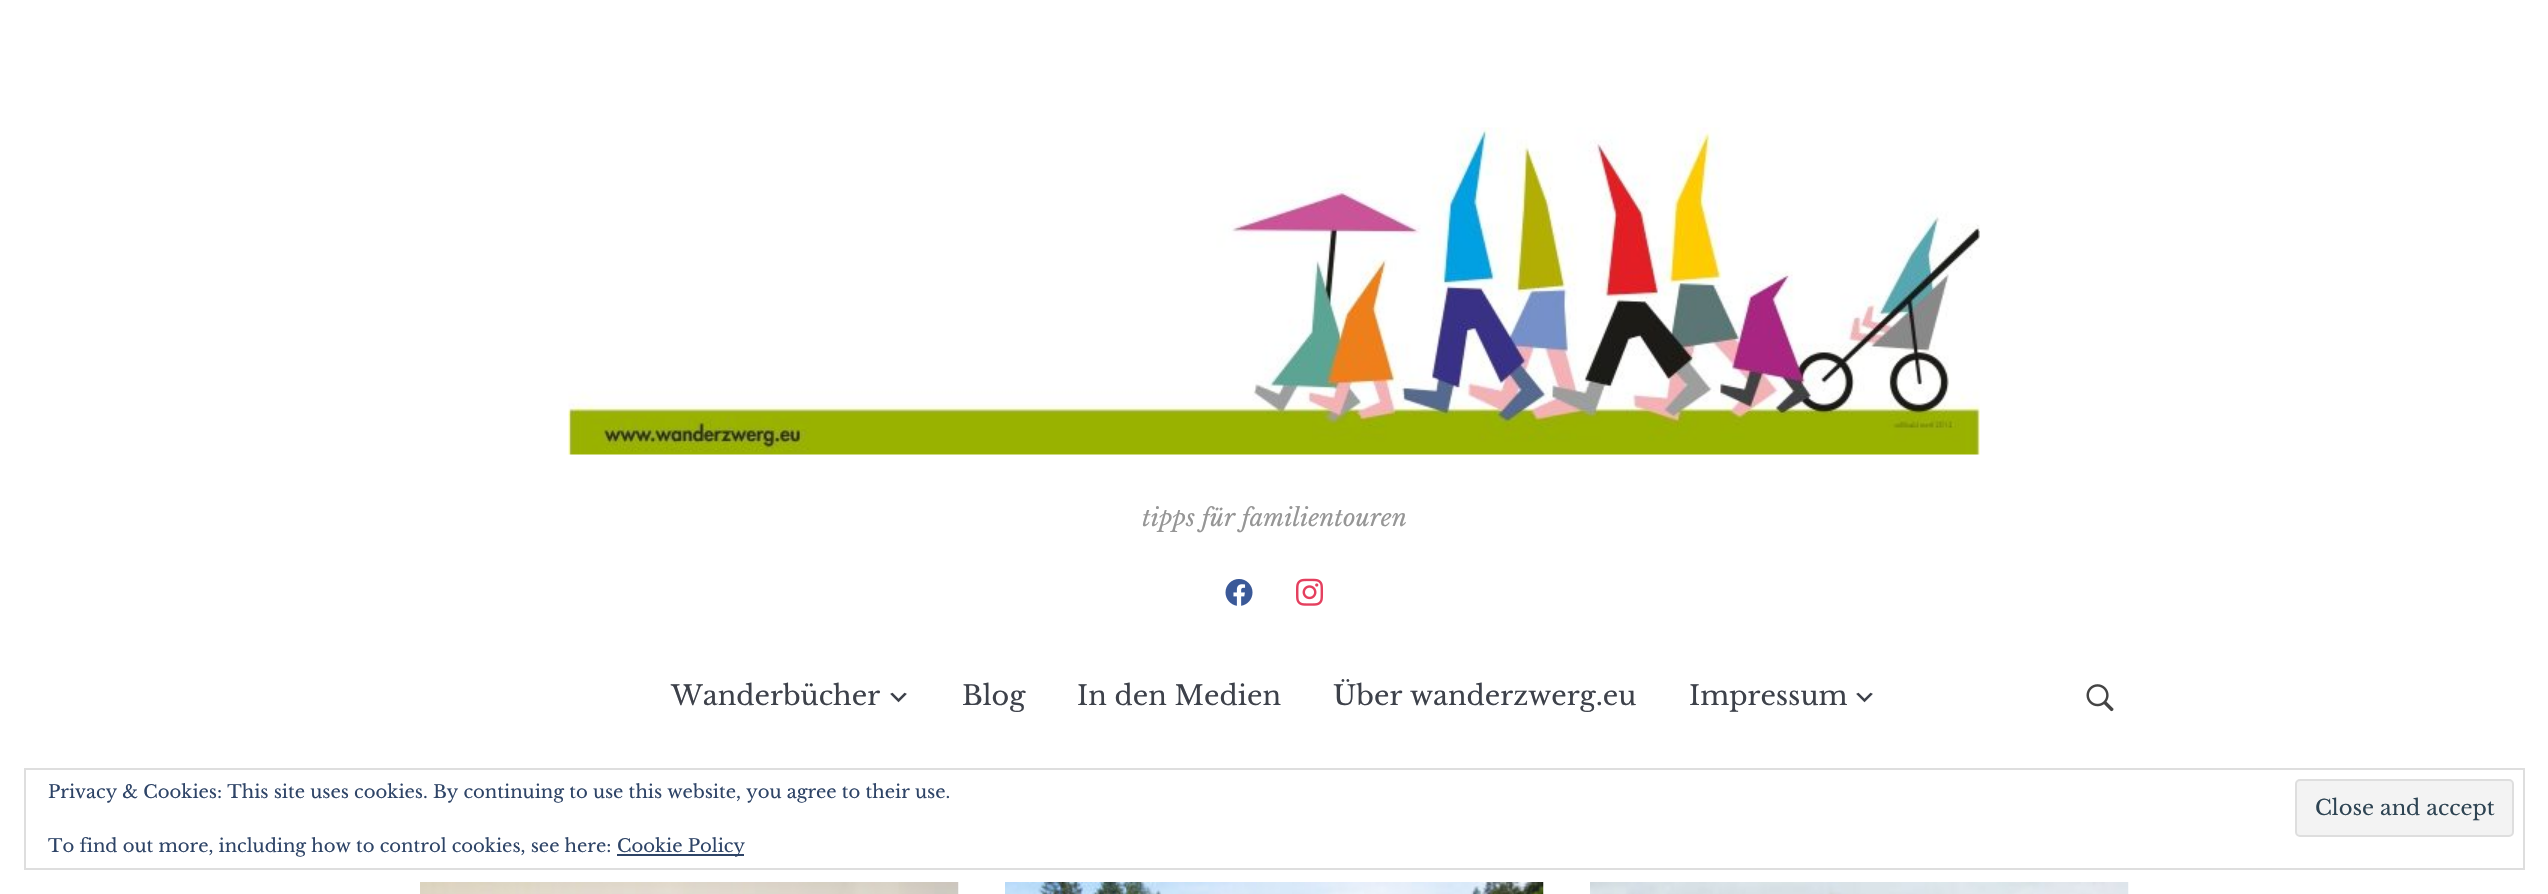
void draw(SkCanvas* canvas) {
  SkPaint paint;
  paint.setAntiAlias(true);
  auto face = [&](const char* family, int weight, float size, bool italic = false) {
    SkFontStyle style(weight, SkFontStyle::kNormal_Width,
      italic ? SkFontStyle::kItalic_Slant : SkFontStyle::kUpright_Slant);
    SkFont result(fontMgr->matchFamilyStyle(family, style), size);
    result.setSubpixel(true);
    return result;
  };
  auto paste = [&](const char* path, float x, float y, float w, float h) {
    auto image = SkImages::DeferredFromEncodedData(SkData::MakeFromFileName(path));
    canvas->drawImageRect(image, SkRect::MakeXYWH(x, y, w, h), SkSamplingOptions());
  };
  canvas->clear(0xffffffff);
  paste("img/1.png", 568, 127, 1412, 328);
  paste("img/2.png", 1225, 579, 28, 27);
  paste("img/3.png", 1296, 578, 28, 28);
  paste("img/4.png", 890, 692, 17, 11);
  paste("img/4.png", 1856, 692, 17, 11);
  paste("img/5.png", 2086, 684, 28, 28);
  paste("img/6.png", 420, 882, 539, 12);
  paste("img/7.png", 1005, 882, 539, 12);
  paste("img/8.png", 1590, 882, 539, 12);
  paint.setStroke(true);
  paint.setStrokeWidth(2);
  paint.setColor(0xffdedede);
  canvas->drawRect(SkRect::MakeXYWH(25, 769, 2499, 100), paint);
  paint.setStroke(false);
  paint.setColor(0xfff3f3f3);
  canvas->drawRoundRect(SkRect::MakeXYWH(2296, 780, 217, 56), 4, 4, paint);
  paint.setStroke(true);
  paint.setColor(0xffdedede);
  canvas->drawRoundRect(SkRect::MakeXYWH(2296, 780, 217, 56), 4, 4, paint);
  paint.setStroke(false);
  paint.setColor(0xff2e4467);
  canvas->drawRect(SkRect::MakeXYWH(617, 854, 127, 2), paint);
  auto f0 = face("Libre Baskerville", 400, 24, true);
  paint.setColor(0xff969696);
  canvas->drawString("tipps für familientouren", 1142, 526, f0, paint);
  auto f1 = face("Libre Baskerville", 400, 27);
  paint.setColor(0xff3d414a);
  {
    const struct { const char* s; float x, y; } items[] = {
      {"Wanderbücher", 671, 705},
      {"Blog", 962, 705},
      {"In den Medien", 1077, 705},
      {"Über wanderzwerg.eu", 1333, 705},
      {"Impressum", 1689, 705},
    };
    for (auto [s, x, y] : items) {
      canvas->drawString(s, x, y, f1, paint);
    }
  }
  auto f2 = face("Libre Baskerville", 400, 18);
  paint.setColor(0xff2e4467);
  canvas->drawString("Privacy & Cookies: This site uses cookies. By continuing to use this website, you agree to their use.", 48, 798, f2, paint);
  auto f3 = face("Libre Baskerville", 400, 21);
  paint.setColor(0xff2e4453);
  canvas->drawString("Close and accept", 2315, 815, f3, paint);
  paint.setColor(0xff2e4467);
  canvas->drawString("To find out more, including how to control cookies, see here:", 48, 852, f2, paint);
  canvas->drawString("Cookie Policy", 617, 852, f2, paint);
}
